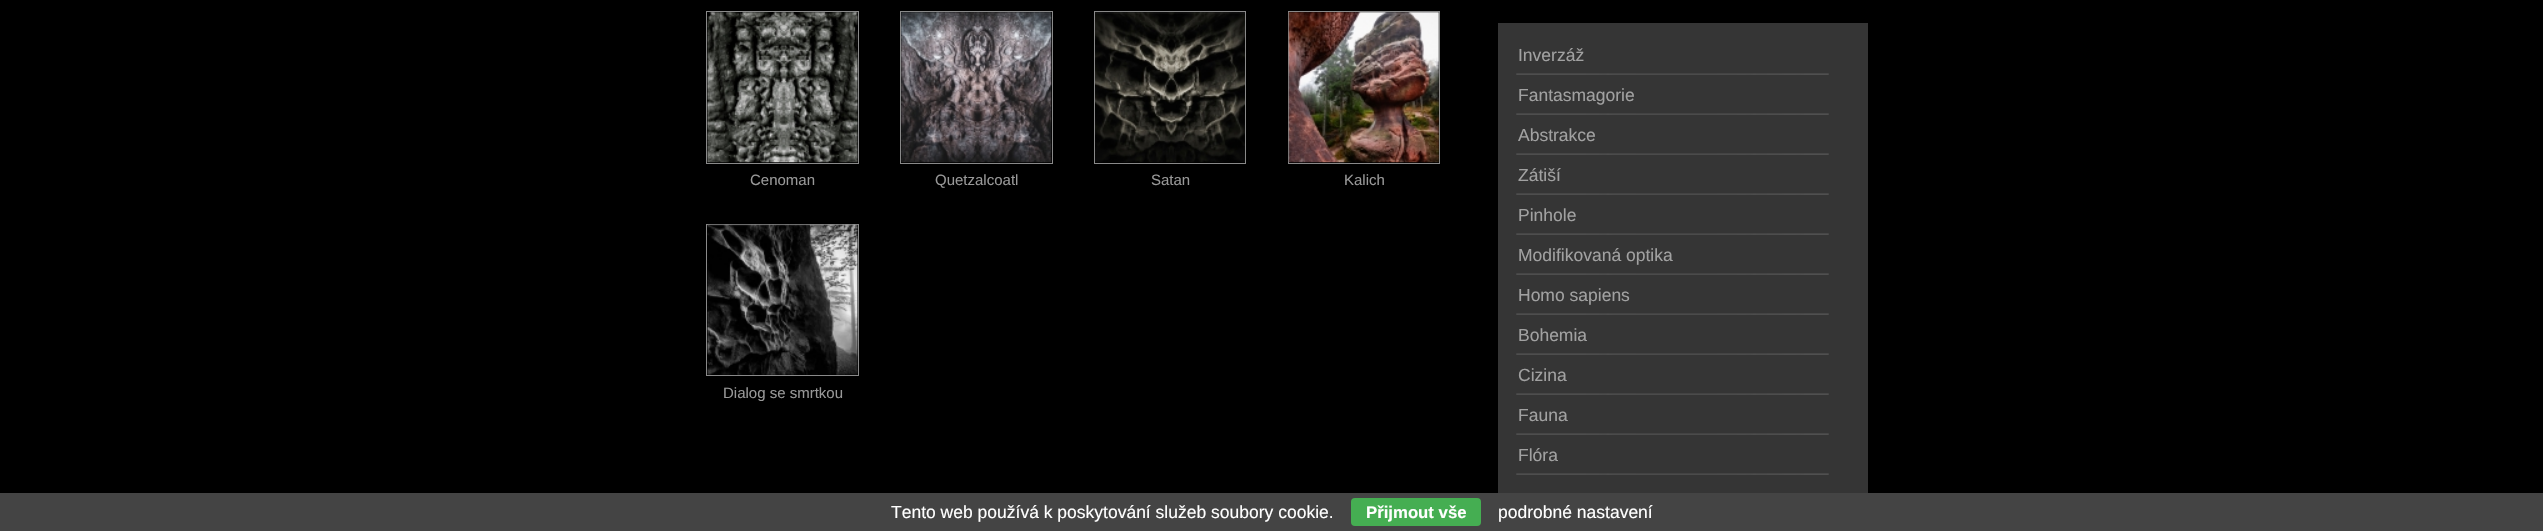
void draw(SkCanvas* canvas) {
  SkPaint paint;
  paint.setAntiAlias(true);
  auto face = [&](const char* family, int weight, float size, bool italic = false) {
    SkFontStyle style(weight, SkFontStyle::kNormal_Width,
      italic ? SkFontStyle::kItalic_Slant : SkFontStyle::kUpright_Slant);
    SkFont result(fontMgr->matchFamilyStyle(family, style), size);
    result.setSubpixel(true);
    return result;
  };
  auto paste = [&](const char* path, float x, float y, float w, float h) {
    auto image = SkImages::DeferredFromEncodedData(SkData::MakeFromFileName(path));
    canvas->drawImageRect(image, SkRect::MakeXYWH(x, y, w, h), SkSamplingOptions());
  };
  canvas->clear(0xff000000);
  paint.setStroke(true);
  paint.setStrokeWidth(1);
  paint.setColor(0xff898989);
  canvas->drawRect(SkRect::MakeXYWH(706.5f, 11.5f, 152, 152), paint);
  paste("img/1.png", 707, 12, 151, 151);
  canvas->drawRect(SkRect::MakeXYWH(900.5f, 11.5f, 152, 152), paint);
  paste("img/2.png", 901, 12, 151, 151);
  canvas->drawRect(SkRect::MakeXYWH(1094.5f, 11.5f, 151, 152), paint);
  paste("img/3.png", 1095, 12, 150, 151);
  canvas->drawRect(SkRect::MakeXYWH(1288.5f, 11.5f, 151, 152), paint);
  paste("img/4.png", 1288, 12, 151, 151);
  canvas->drawRect(SkRect::MakeXYWH(706.5f, 224.5f, 152, 151), paint);
  paste("img/5.png", 707, 224, 151, 151);
  paint.setStroke(false);
  paint.setColor(0xff353535);
  canvas->drawRect(SkRect::MakeXYWH(1498, 23, 370, 470), paint);
  paste("img/6.png", 1516, 73, 313, 2);
  paste("img/6.png", 1516, 113, 313, 2);
  paste("img/6.png", 1516, 153, 313, 2);
  paste("img/6.png", 1516, 193, 313, 2);
  paste("img/6.png", 1516, 233, 313, 2);
  paste("img/6.png", 1516, 273, 313, 2);
  paste("img/6.png", 1516, 313, 313, 2);
  paste("img/6.png", 1516, 353, 313, 2);
  paste("img/6.png", 1516, 393, 313, 2);
  paste("img/6.png", 1516, 433, 313, 2);
  paste("img/6.png", 1516, 473, 313, 2);
  paint.setColor(0xff444444);
  canvas->drawRect(SkRect::MakeXYWH(0, 493, 2543, 38), paint);
  paint.setColor(0xff45ae52);
  canvas->drawRoundRect(SkRect::MakeXYWH(1351, 498, 130, 28), 4, 4, paint);
  auto f0 = face("Liberation Sans", 400, 15);
  paint.setColor(0xff989898);
  {
    const struct { const char* s; float x, y; } items[] = {
      {"Cenoman", 750, 185},
      {"Quetzalcoatl", 935, 185},
      {"Satan", 1151, 185},
      {"Kalich", 1344, 185},
      {"Dialog se smrtkou", 723, 398},
    };
    for (auto [s, x, y] : items) {
      canvas->drawString(s, x, y, f0, paint);
    }
  }
  auto f1 = face("Liberation Sans", 400, 17.5f);
  paint.setColor(0xffa1a1a1);
  {
    const struct { const char* s; float x, y; } items[] = {
      {"Inverzáž", 1518, 61},
      {"Fantasmagorie", 1518, 101},
      {"Abstrakce", 1518, 141},
      {"Zátiší", 1518, 181},
      {"Pinhole", 1518, 221},
      {"Modifikovaná optika", 1518, 261},
      {"Homo sapiens", 1518, 301},
      {"Bohemia", 1518, 341},
      {"Cizina", 1518, 381},
      {"Fauna", 1518, 421},
      {"Flóra", 1518, 461},
    };
    for (auto [s, x, y] : items) {
      canvas->drawString(s, x, y, f1, paint);
    }
  }
  paint.setColor(0xffffffff);
  canvas->drawString("Tento web používá k poskytování služeb soubory cookie.", 891, 518, f1, paint);
  auto f2 = face("Liberation Sans", 700, 16.75f);
  canvas->drawString("Přijmout vše", 1366, 518, f2, paint);
  canvas->drawString("podrobné nastavení", 1498, 518, f1, paint);
}
